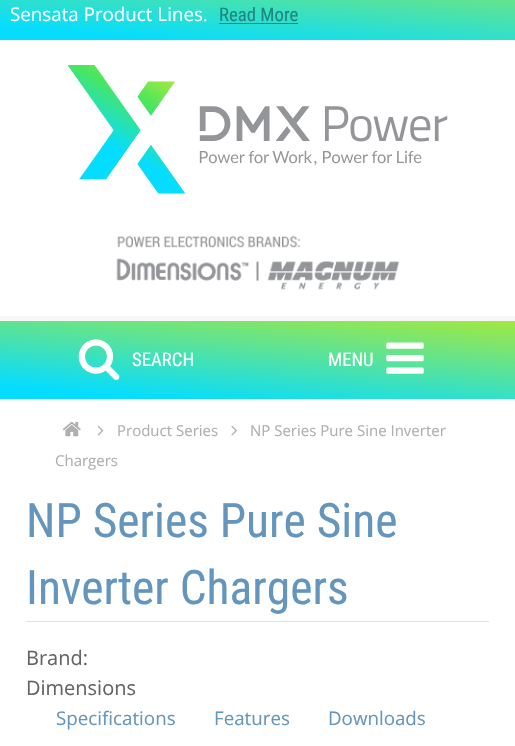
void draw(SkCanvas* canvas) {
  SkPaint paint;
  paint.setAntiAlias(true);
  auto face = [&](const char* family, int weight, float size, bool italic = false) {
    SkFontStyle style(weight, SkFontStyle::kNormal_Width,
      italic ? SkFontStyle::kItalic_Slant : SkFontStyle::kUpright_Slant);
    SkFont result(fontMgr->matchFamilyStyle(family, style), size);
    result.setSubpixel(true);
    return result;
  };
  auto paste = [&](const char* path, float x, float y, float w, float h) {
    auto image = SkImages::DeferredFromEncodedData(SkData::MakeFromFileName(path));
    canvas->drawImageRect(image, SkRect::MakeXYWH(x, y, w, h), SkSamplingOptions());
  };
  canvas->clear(0xffffffff);
  {
    const SkColor colors[] = {0xffa1e842, 0xff06ddfe};
    const float stops[] = {0, 0.89f};
    const SkPoint ends[] = {{263, -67}, {252, 62}};
    paint.setShader(SkGradientShader::MakeLinear(ends, colors, stops, 2, SkTileMode::kClamp));
    paint.setAlpha(255);
  }
  canvas->drawRect(SkRect::MakeXYWH(0, 0, 515, 40), paint);
  {
    const SkColor colors[] = {0xff618b28, 0xff048598};
    const float stops[] = {0, 0.89f};
    const SkPoint ends[] = {{263, -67}, {252, 62}};
    paint.setShader(SkGradientShader::MakeLinear(ends, colors, stops, 2, SkTileMode::kClamp));
    paint.setAlpha(255);
  }
  canvas->drawRect(SkRect::MakeXYWH(219, 23, 79, 1), paint);
  paste("img/1.png", 68, 65, 380, 129);
  paste("img/2.png", 116, 235, 284, 55);
  {
    const SkColor colors[] = {0xffa1e842, 0xff06ddfe};
    const float stops[] = {0, 0.89f};
    const SkPoint ends[] = {{263, 299}, {252, 421}};
    paint.setShader(SkGradientShader::MakeLinear(ends, colors, stops, 2, SkTileMode::kClamp));
    paint.setAlpha(255);
  }
  canvas->drawRect(SkRect::MakeXYWH(0, 321, 515, 78), paint);
  paint.setShader(nullptr);
  paint.setColor(0xfff7f7f7);
  canvas->drawRect(SkRect::MakeXYWH(0, 316, 515, 5), paint);
  paste("img/3.png", 78, 339, 42, 41);
  paste("img/4.png", 386, 342, 38, 32);
  paste("img/5.png", 62, 421, 19, 16);
  paste("img/6.png", 97, 425, 7, 11);
  paste("img/7.png", 231, 425, 6, 11);
  paint.setColor(0xffe1e2e2);
  canvas->drawRect(SkRect::MakeXYWH(26, 621, 463, 1), paint);
  auto f0 = face("Open Sans", 400, 18.75f);
  paint.setColor(0xffffffff);
  canvas->drawString("Sensata Product Lines.", 10, 21, f0, paint);
  auto f1 = face("Roboto Condensed", 400, 18.75f);
  paint.setColor(0xff1e8678);
  canvas->drawString("Read More", 219, 21, f1, paint);
  paint.setColor(0xffffffff);
  canvas->drawString("SEARCH", 132, 366, f1, paint);
  canvas->drawString("MENU", 328, 366, f1, paint);
  auto f2 = face("Open Sans", 400, 15);
  paint.setColor(0xffadafb0);
  {
    const struct { const char* s; float x, y; } items[] = {
      {"Product Series", 117, 436},
      {"NP Series Pure Sine Inverter", 250, 436},
      {"Chargers", 55, 466},
    };
    for (auto [s, x, y] : items) {
      canvas->drawString(s, x, y, f2, paint);
    }
  }
  auto f3 = face("Roboto Condensed", 400, 47.5f);
  paint.setColor(0xff6395bd);
  canvas->drawString("NP Series Pure Sine", 26, 537, f3, paint);
  canvas->drawString("Inverter Chargers", 26, 604, f3, paint);
  auto f4 = face("Open Sans", 400, 20);
  paint.setColor(0xff636466);
  canvas->drawString("Brand:", 26, 665, f4, paint);
  canvas->drawString("Dimensions", 26, 695, f4, paint);
  paint.setColor(0xff6395bd);
  {
    const struct { const char* s; float x, y; } items[] = {
      {"Specifications", 56, 725},
      {"Features", 214, 725},
      {"Downloads", 328, 725},
    };
    for (auto [s, x, y] : items) {
      canvas->drawString(s, x, y, f0, paint);
    }
  }
}
